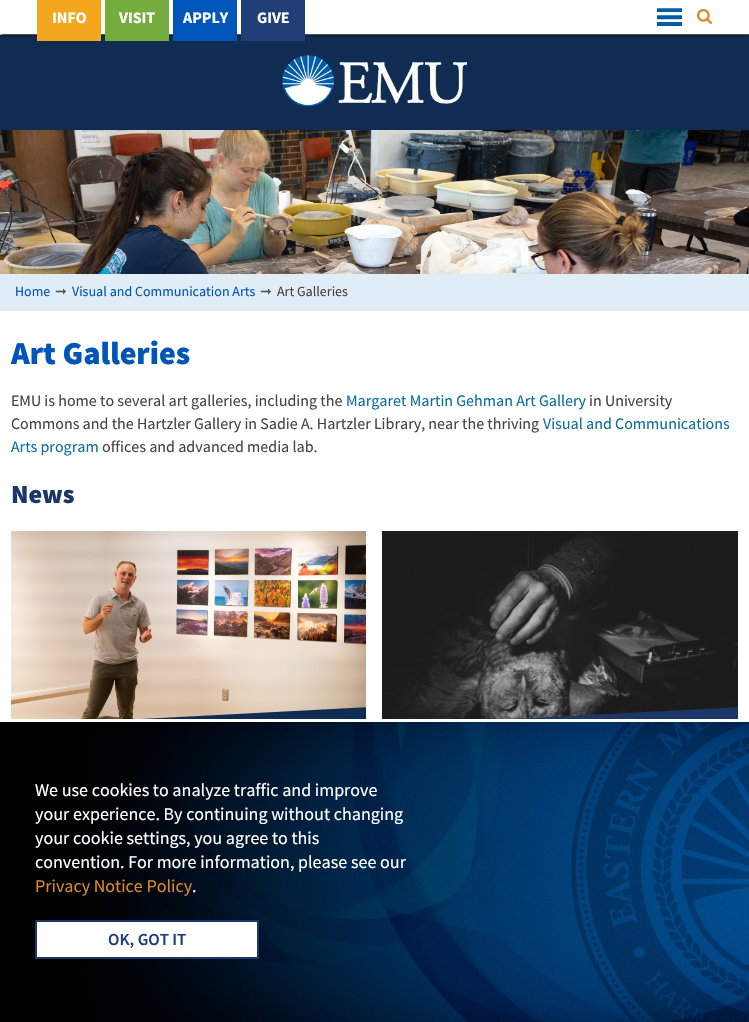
void draw(SkCanvas* canvas) {
  SkPaint paint;
  paint.setAntiAlias(true);
  auto face = [&](const char* family, int weight, float size, bool italic = false) {
    SkFontStyle style(weight, SkFontStyle::kNormal_Width,
      italic ? SkFontStyle::kItalic_Slant : SkFontStyle::kUpright_Slant);
    SkFont result(fontMgr->matchFamilyStyle(family, style), size);
    result.setSubpixel(true);
    return result;
  };
  auto paste = [&](const char* path, float x, float y, float w, float h) {
    auto image = SkImages::DeferredFromEncodedData(SkData::MakeFromFileName(path));
    canvas->drawImageRect(image, SkRect::MakeXYWH(x, y, w, h), SkSamplingOptions());
  };
  auto shape = [&](const char* data, bool evenOdd = false) {
    SkPath result = *SkParsePath::FromSVGString(data);
    if (evenOdd) result.setFillType(SkPathFillType::kEvenOdd);
    return result;
  };
  canvas->clear(0xffffffff);
  paint.setColor(0xff102c52);
  canvas->drawRect(SkRect::MakeXYWH(0, 35, 749, 95), paint);
  canvas->save();
  canvas->clipRect(SkRect::MakeXYWH(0, 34, 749, 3));
  paint.setColor(0xff000000);
  paint.setMaskFilter(SkMaskFilter::MakeBlur(kNormal_SkBlurStyle, 1));
  canvas->drawRect(SkRect::MakeXYWH(1, 1, 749, 34), paint);
  paint.setMaskFilter(nullptr);
  canvas->restore();
  {
    const struct { float x, y, w, h; SkColor color; } items[] = {
      {37, 0, 64, 41, 0xfff3a71e},
      {105, 0, 64, 41, 0xff74ad3c},
      {173, 0, 64, 41, 0xff0056b8},
      {241, 0, 64, 41, 0xff203f77},
    };
    for (auto [x, y, w, h, color] : items) {
      paint.setColor(color);
      canvas->drawRect(SkRect::MakeXYWH(x, y, w, h), paint);
    }
  }
  paste("img/1.png", 657, 8, 25, 18);
  paste("img/2.png", 697, 9, 15, 15);
  paste("img/3.png", 282, 55, 185, 51);
  paste("img/4.png", 0, 130, 749, 144);
  paint.setColor(0xffe0edf7);
  canvas->drawRect(SkRect::MakeXYWH(0, 274, 749, 37), paint);
  paste("img/5.png", 11, 531, 355, 188);
  canvas->save();
  canvas->clipRect(SkRect::MakeXYWH(11, 531, 355, 405));
  paint.setColor(0xff102c52);
  canvas->drawPath(shape("M-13 727L431 704L447 1010L4 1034Z"), paint);
  canvas->restore();
  paste("img/6.png", 382, 531, 356, 188);
  canvas->save();
  canvas->clipRect(SkRect::MakeXYWH(382, 531, 356, 405));
  paint.setColor(0xff1c3767);
  canvas->drawPath(shape("M359 727L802 704L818 1010L375 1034Z"), paint);
  canvas->restore();
  paste("img/7.png", 0, 722, 749, 300);
  paint.setColor(0xffffffff);
  canvas->drawRect(SkRect::MakeXYWH(84, 719, 654, 3), paint);
  canvas->drawRect(SkRect::MakeXYWH(36, 921, 222, 37), paint);
  paint.setStroke(true);
  paint.setStrokeWidth(2);
  paint.setColor(0xff1c3767);
  canvas->drawRect(SkRect::MakeXYWH(36, 921, 222, 37), paint);
  auto f0 = face("Source Sans Pro", 700, 16);
  paint.setStroke(false);
  paint.setColor(0xffffffff);
  {
    const struct { const char* s; float x, y; } items[] = {
      {"INFO", 52, 23},
      {"VISIT", 119, 23},
      {"APPLY", 183, 23},
      {"GIVE", 257, 23},
    };
    for (auto [s, x, y] : items) {
      canvas->drawString(s, x, y, f0, paint);
    }
  }
  auto f1 = face("Source Sans Pro", 400, 14);
  paint.setColor(0xff0056b8);
  canvas->drawString("Home", 15, 296, f1, paint);
  auto f2 = face("DejaVu Sans", 400, 14);
  paint.setColor(0xff555555);
  canvas->drawString("➞", 55, 296, f2, paint);
  paint.setColor(0xff0056b8);
  canvas->drawString("Visual and Communication Arts", 72, 296, f1, paint);
  paint.setColor(0xff555555);
  canvas->drawString("➞", 260, 296, f2, paint);
  paint.setColor(0xff444444);
  canvas->drawString("Art Galleries", 277, 296, f1, paint);
  auto f3 = face("Source Sans Pro", 900, 32);
  paint.setColor(0xff0056b8);
  canvas->drawString("Art Galleries", 11, 364, f3, paint);
  auto f4 = face("Source Sans Pro", 400, 16);
  paint.setColor(0xff444444);
  canvas->drawString("EMU is home to several art galleries, including the", 11, 406, f4, paint);
  paint.setColor(0xff0d6ea0);
  canvas->drawString("Margaret Martin Gehman Art Gallery", 346, 406, f4, paint);
  paint.setColor(0xff444444);
  canvas->drawString("in University", 589, 406, f4, paint);
  canvas->drawString("Commons and the Hartzler Gallery in Sadie A. Hartzler Library, near the thriving", 11, 429, f4, paint);
  paint.setColor(0xff0d6ea0);
  canvas->drawString("Visual and Communications", 543, 429, f4, paint);
  canvas->drawString("Arts program", 11, 452, f4, paint);
  paint.setColor(0xff444444);
  canvas->drawString("offices and advanced media lab.", 102, 452, f4, paint);
  auto f5 = face("Source Sans Pro", 900, 26);
  paint.setColor(0xff1c3767);
  canvas->drawString("News", 11, 503, f5, paint);
  auto f6 = face("Source Sans Pro", 400, 18);
  paint.setColor(0xffffffff);
  {
    const struct { const char* s; float x, y; } items[] = {
      {"We use cookies to analyze traffic and improve", 35, 796},
      {"your experience. By continuing without changing", 35, 820},
      {"your cookie settings, you agree to this", 35, 844},
      {"convention. For more information, please see our", 35, 868},
    };
    for (auto [s, x, y] : items) {
      canvas->drawString(s, x, y, f6, paint);
    }
  }
  paint.setColor(0xffdd8b27);
  canvas->drawString("Privacy Notice Policy", 35, 892, f6, paint);
  paint.setColor(0xffffffff);
  canvas->drawString(".", 192, 892, f6, paint);
  auto f7 = face("Source Sans Pro", 600, 17);
  paint.setColor(0xff203f76);
  canvas->drawString("OK, GOT IT", 108, 945, f7, paint);
}
